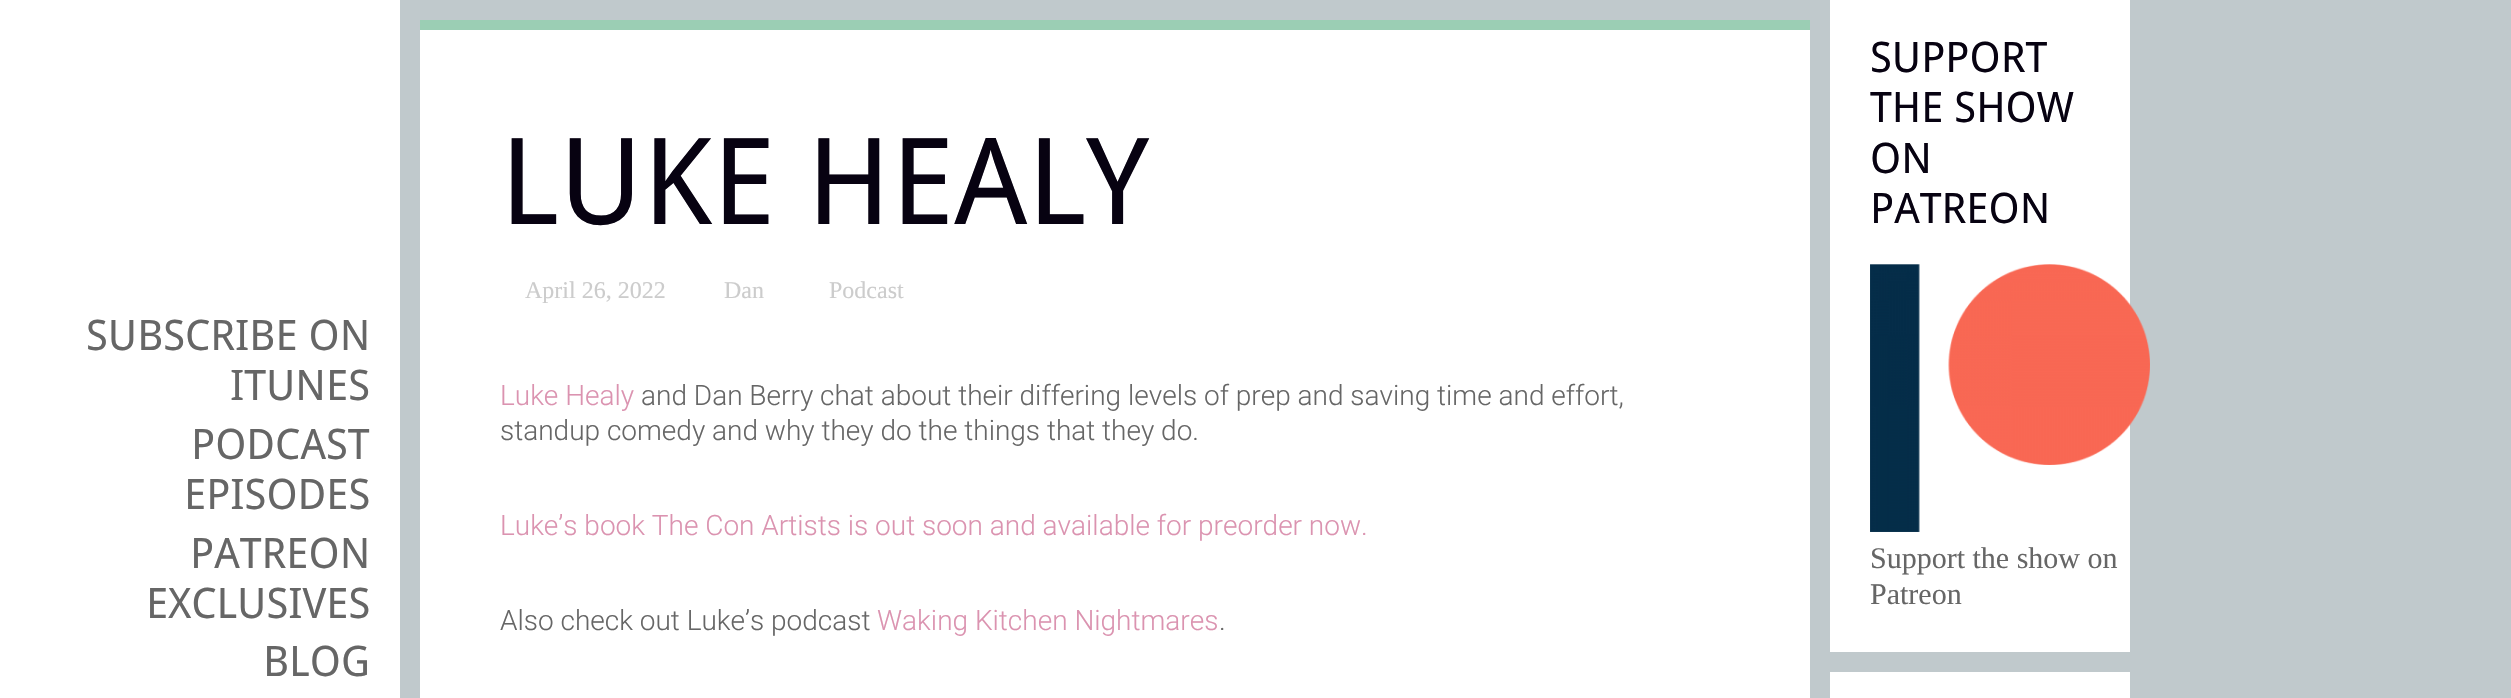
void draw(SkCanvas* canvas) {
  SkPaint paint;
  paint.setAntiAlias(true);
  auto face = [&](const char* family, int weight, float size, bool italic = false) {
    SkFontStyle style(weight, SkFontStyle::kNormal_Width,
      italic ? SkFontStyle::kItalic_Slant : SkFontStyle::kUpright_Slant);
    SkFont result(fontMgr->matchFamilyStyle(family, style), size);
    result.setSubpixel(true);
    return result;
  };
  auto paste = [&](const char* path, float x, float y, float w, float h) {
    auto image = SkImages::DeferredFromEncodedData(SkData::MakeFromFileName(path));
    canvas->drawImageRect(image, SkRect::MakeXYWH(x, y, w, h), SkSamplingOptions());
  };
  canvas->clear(0xffc0c9cc);
  {
    const struct { float x, y, w, h; SkColor color; } items[] = {
      {0, 0, 400, 698, 0xffffffff},
      {420, 20, 1390, 10, 0xff9bceb4},
      {420, 30, 1390, 668, 0xffffffff},
      {1830, 0, 300, 652, 0xffffffff},
    };
    for (auto [x, y, w, h, color] : items) {
      paint.setColor(color);
      canvas->drawRect(SkRect::MakeXYWH(x, y, w, h), paint);
    }
  }
  paste("img/1.png", 1870, 264, 280, 268);
  canvas->drawRect(SkRect::MakeXYWH(1830, 672, 300, 26), paint);
  auto f0 = face("Droid Sans", 400, 120);
  paint.setColor(0xff070211);
  canvas->drawString("LUKE HEALY", 500, 224, f0, paint);
  auto f1 = face("Liberation Serif", 400, 24);
  paint.setColor(0xffcccccc);
  {
    const struct { const char* s; float x, y; } items[] = {
      {"April 26, 2022", 525, 298},
      {"Dan", 724, 298},
      {"Podcast", 829, 298},
    };
    for (auto [s, x, y] : items) {
      canvas->drawString(s, x, y, f1, paint);
    }
  }
  auto f2 = face("Roboto", 300, 28);
  paint.setColor(0xffdb93b0);
  canvas->drawString("Luke Healy", 500, 405, f2, paint);
  paint.setColor(0xff666666);
  canvas->drawString("and Dan Berry chat about their differing levels of prep and saving time and effort,", 641, 405, f2, paint);
  canvas->drawString("standup comedy and why they do the things that they do.", 500, 440, f2, paint);
  paint.setColor(0xffdb93b0);
  canvas->drawString("Luke’s book The Con Artists is out soon and available for preorder now.", 500, 535, f2, paint);
  paint.setColor(0xff666666);
  canvas->drawString("Also check out Luke’s podcast", 500, 630, f2, paint);
  paint.setColor(0xffdb93b0);
  canvas->drawString("Waking Kitchen Nightmares", 877, 630, f2, paint);
  paint.setColor(0xff666666);
  canvas->drawString(".", 1219, 630, f2, paint);
  auto f3 = face("Droid Sans", 400, 42);
  paint.setColor(0xff070211);
  {
    const struct { const char* s; float x, y; } items[] = {
      {"SUPPORT", 1870, 72},
      {"THE SHOW", 1870, 122},
      {"ON", 1870, 173},
      {"PATREON", 1870, 223},
    };
    for (auto [s, x, y] : items) {
      canvas->drawString(s, x, y, f3, paint);
    }
  }
  auto f4 = face("Liberation Serif", 400, 30);
  paint.setColor(0xff666666);
  canvas->drawString("Support the show on", 1870, 568, f4, paint);
  canvas->drawString("Patreon", 1870, 604, f4, paint);
  {
    const struct { const char* s; float x, y; } items[] = {
      {"SUBSCRIBE ON", 86, 350},
      {"ITUNES", 230, 400},
      {"PODCAST", 191, 459},
      {"EPISODES", 184, 509},
      {"PATREON", 190, 568},
      {"EXCLUSIVES", 146, 618},
      {"BLOG", 263, 676},
    };
    for (auto [s, x, y] : items) {
      canvas->drawString(s, x, y, f3, paint);
    }
  }
}
